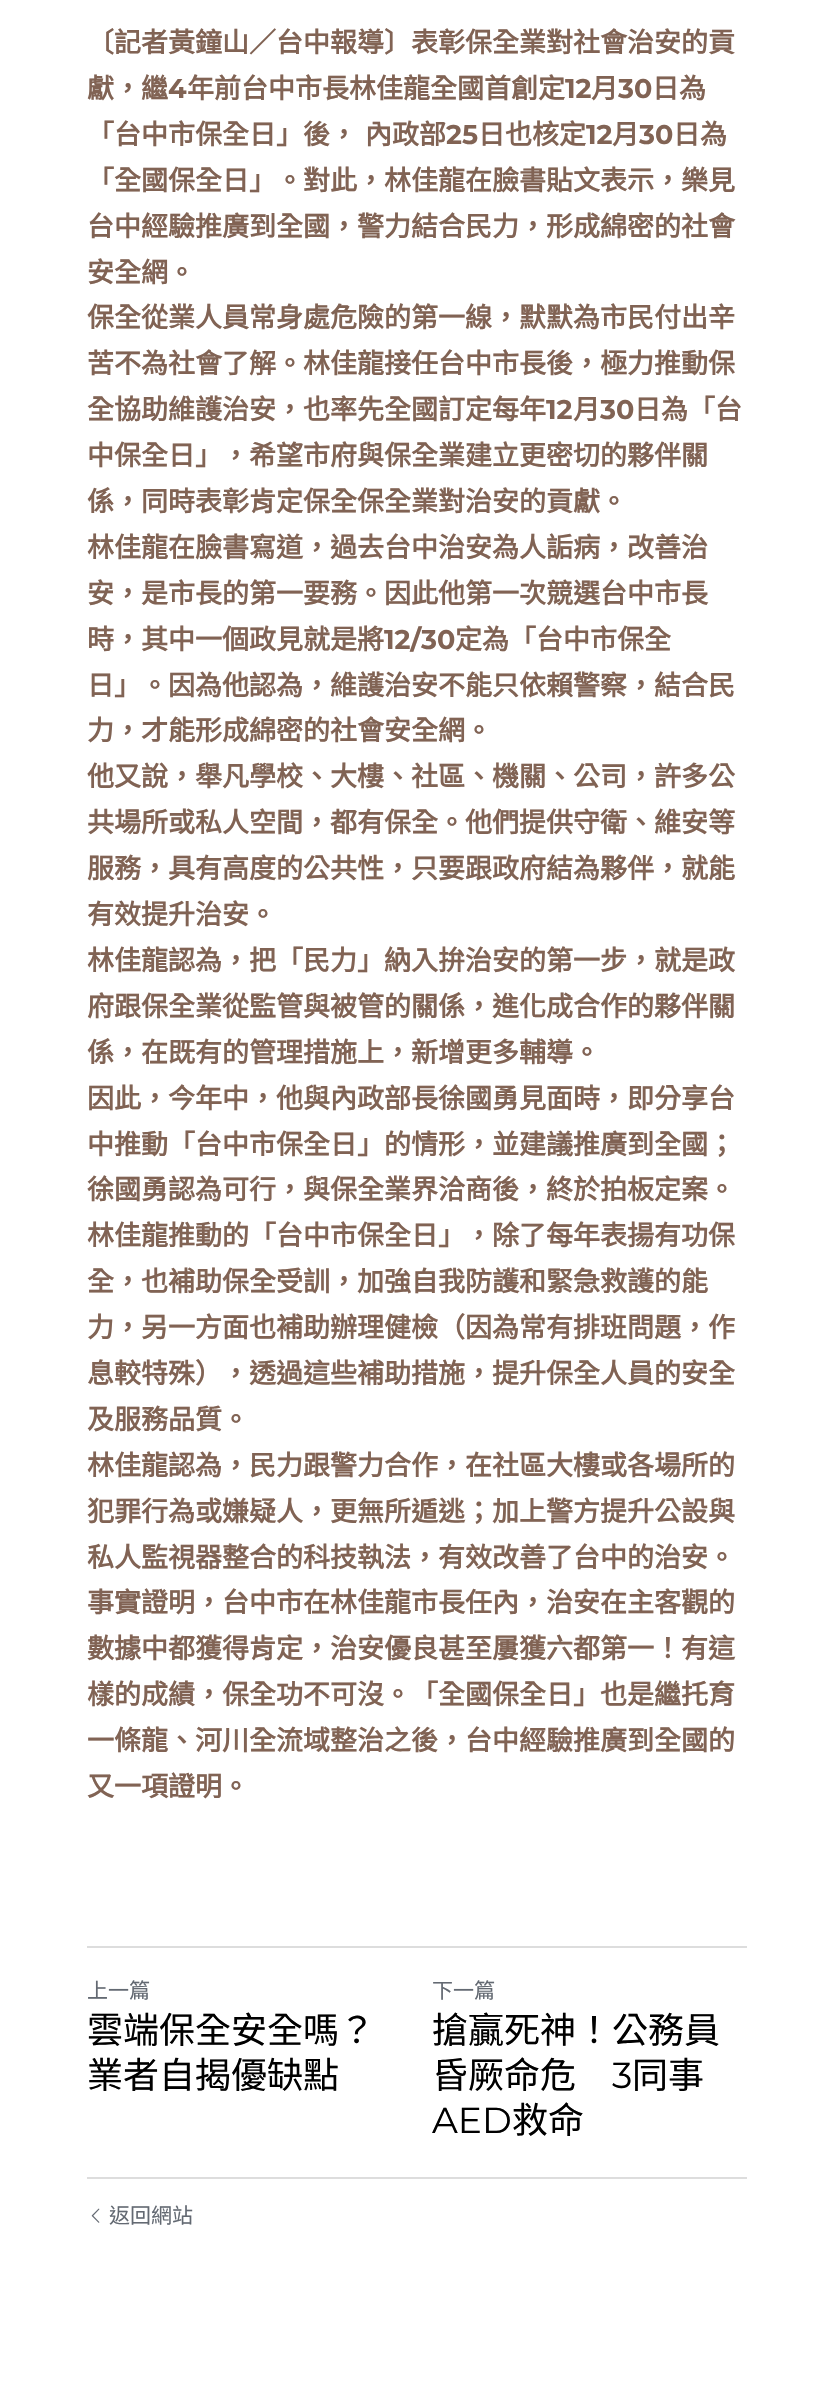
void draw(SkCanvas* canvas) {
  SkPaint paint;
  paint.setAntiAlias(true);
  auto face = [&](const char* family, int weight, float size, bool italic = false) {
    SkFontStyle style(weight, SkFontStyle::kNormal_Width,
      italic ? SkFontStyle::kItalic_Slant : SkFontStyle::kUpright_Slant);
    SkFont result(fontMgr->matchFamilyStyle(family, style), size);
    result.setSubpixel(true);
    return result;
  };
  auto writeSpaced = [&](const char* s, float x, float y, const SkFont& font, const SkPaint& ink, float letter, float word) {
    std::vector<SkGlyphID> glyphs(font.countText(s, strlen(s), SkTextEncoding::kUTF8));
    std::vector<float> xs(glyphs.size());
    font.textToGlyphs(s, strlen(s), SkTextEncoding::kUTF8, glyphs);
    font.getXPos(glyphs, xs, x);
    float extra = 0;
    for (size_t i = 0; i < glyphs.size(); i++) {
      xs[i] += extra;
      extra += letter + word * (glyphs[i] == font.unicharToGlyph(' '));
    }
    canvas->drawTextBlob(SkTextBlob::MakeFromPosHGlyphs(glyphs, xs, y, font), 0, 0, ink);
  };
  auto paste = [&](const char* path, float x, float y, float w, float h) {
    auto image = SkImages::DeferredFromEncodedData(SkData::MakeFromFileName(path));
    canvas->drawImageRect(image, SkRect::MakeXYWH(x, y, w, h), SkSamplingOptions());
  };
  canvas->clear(0xffffffff);
  paint.setColor(0xffdddddd);
  canvas->drawRect(SkRect::MakeXYWH(87, 1946, 660, 2), paint);
  canvas->drawRect(SkRect::MakeXYWH(87, 2177, 660, 2), paint);
  paste("img/1.png", 91, 2208, 9, 15);
  auto f0 = face("Noto Sans CJK TC", 700, 27);
  paint.setColor(0xff816354);
  canvas->drawString("〔記者黃鐘山／台中報導〕表彰保全業對社會治安的貢", 87, 52, f0, paint);
  canvas->drawString("獻，繼", 87, 98, f0, paint);
  auto f1 = face("Montserrat", 700, 27);
  canvas->drawString("4", 168, 98, f1, paint);
  canvas->drawString("年前台中市長林佳龍全國首創定", 187, 98, f0, paint);
  canvas->drawString("12", 565, 98, f1, paint);
  canvas->drawString("月", 591, 98, f0, paint);
  canvas->drawString("30", 618, 98, f1, paint);
  canvas->drawString("日為", 652, 98, f0, paint);
  writeSpaced("「台中市保全日」後， 內政部", 87, 144, f0, paint, 0, 2);
  canvas->drawString("25", 446, 144, f1, paint);
  canvas->drawString("日也核定", 478, 144, f0, paint);
  canvas->drawString("12", 586, 144, f1, paint);
  canvas->drawString("月", 612, 144, f0, paint);
  canvas->drawString("30", 639, 144, f1, paint);
  {
    const struct { const char* s; float x, y; } items[] = {
      {"日為", 673, 144},
      {"「全國保全日」。對此，林佳龍在臉書貼文表示，樂見", 87, 190},
      {"台中經驗推廣到全國，警力結合民力，形成綿密的社會", 87, 236},
      {"安全網。", 87, 282},
      {"保全從業人員常身處危險的第一線，默默為市民付出辛", 87, 327},
      {"苦不為社會了解。林佳龍接任台中市長後，極力推動保", 87, 373},
      {"全協助維護治安，也率先全國訂定每年", 87, 419},
    };
    for (auto [s, x, y] : items) {
      canvas->drawString(s, x, y, f0, paint);
    }
  }
  canvas->drawString("12", 546, 419, f1, paint);
  canvas->drawString("月", 573, 419, f0, paint);
  canvas->drawString("30", 600, 419, f1, paint);
  {
    const struct { const char* s; float x, y; } items[] = {
      {"日為「台", 634, 419},
      {"中保全日」，希望市府與保全業建立更密切的夥伴關", 87, 465},
      {"係，同時表彰肯定保全保全業對治安的貢獻。", 87, 511},
      {"林佳龍在臉書寫道，過去台中治安為人詬病，改善治", 87, 557},
      {"安，是市長的第一要務。因此他第一次競選台中市長", 87, 603},
      {"時，其中一個政見就是將", 87, 649},
    };
    for (auto [s, x, y] : items) {
      canvas->drawString(s, x, y, f0, paint);
    }
  }
  canvas->drawString("12/30", 384, 649, f1, paint);
  {
    const struct { const char* s; float x, y; } items[] = {
      {"定為「台中市保全", 455, 649},
      {"日」。因為他認為，維護治安不能只依賴警察，結合民", 87, 695},
      {"力，才能形成綿密的社會安全網。", 87, 740},
      {"他又說，舉凡學校、大樓、社區、機關、公司，許多公", 87, 786},
      {"共場所或私人空間，都有保全。他們提供守衛、維安等", 87, 832},
      {"服務，具有高度的公共性，只要跟政府結為夥伴，就能", 87, 878},
      {"有效提升治安。", 87, 924},
      {"林佳龍認為，把「民力」納入拚治安的第一步，就是政", 87, 970},
      {"府跟保全業從監管與被管的關係，進化成合作的夥伴關", 87, 1016},
      {"係，在既有的管理措施上，新增更多輔導。", 87, 1062},
      {"因此，今年中，他與內政部長徐國勇見面時，即分享台", 87, 1108},
      {"中推動「台中市保全日」的情形，並建議推廣到全國；", 87, 1154},
      {"徐國勇認為可行，與保全業界洽商後，終於拍板定案。", 87, 1199},
      {"林佳龍推動的「台中市保全日」，除了每年表揚有功保", 87, 1245},
      {"全，也補助保全受訓，加強自我防護和緊急救護的能", 87, 1291},
      {"力，另一方面也補助辦理健檢（因為常有排班問題，作", 87, 1337},
      {"息較特殊），透過這些補助措施，提升保全人員的安全", 87, 1383},
      {"及服務品質。", 87, 1429},
      {"林佳龍認為，民力跟警力合作，在社區大樓或各場所的", 87, 1475},
      {"犯罪行為或嫌疑人，更無所遁逃；加上警方提升公設與", 87, 1521},
      {"私人監視器整合的科技執法，有效改善了台中的治安。", 87, 1567},
      {"事實證明，台中市在林佳龍市長任內，治安在主客觀的", 87, 1612},
      {"數據中都獲得肯定，治安優良甚至屢獲六都第一！有這", 87, 1658},
      {"樣的成績，保全功不可沒。「全國保全日」也是繼托育", 87, 1704},
      {"一條龍、河川全流域整治之後，台中經驗推廣到全國的", 87, 1750},
      {"又一項證明。", 87, 1796},
    };
    for (auto [s, x, y] : items) {
      canvas->drawString(s, x, y, f0, paint);
    }
  }
  auto f2 = face("Noto Sans CJK TC", 400, 21);
  paint.setColor(0xff636972);
  canvas->drawString("上一篇", 87, 1998, f2, paint);
  auto f3 = face("Noto Sans CJK TC", 400, 36);
  paint.setColor(0xff000000);
  canvas->drawString("雲端保全安全嗎？", 87, 2043, f3, paint);
  canvas->drawString("業者自揭優缺點", 87, 2088, f3, paint);
  paint.setColor(0xff636972);
  canvas->drawString("下一篇", 432, 1998, f2, paint);
  paint.setColor(0xff000000);
  canvas->drawString("搶贏死神！公務員", 432, 2043, f3, paint);
  canvas->drawString("昏厥命危", 432, 2088, f3, paint);
  auto f4 = face("Montserrat", 400, 36);
  canvas->drawString("3", 612, 2088, f4, paint);
  canvas->drawString("同事", 632, 2088, f3, paint);
  canvas->drawString("AED", 432, 2133, f4, paint);
  canvas->drawString("救命", 512, 2133, f3, paint);
  paint.setColor(0xff636972);
  canvas->drawString("返回網站", 109, 2223, f2, paint);
}
